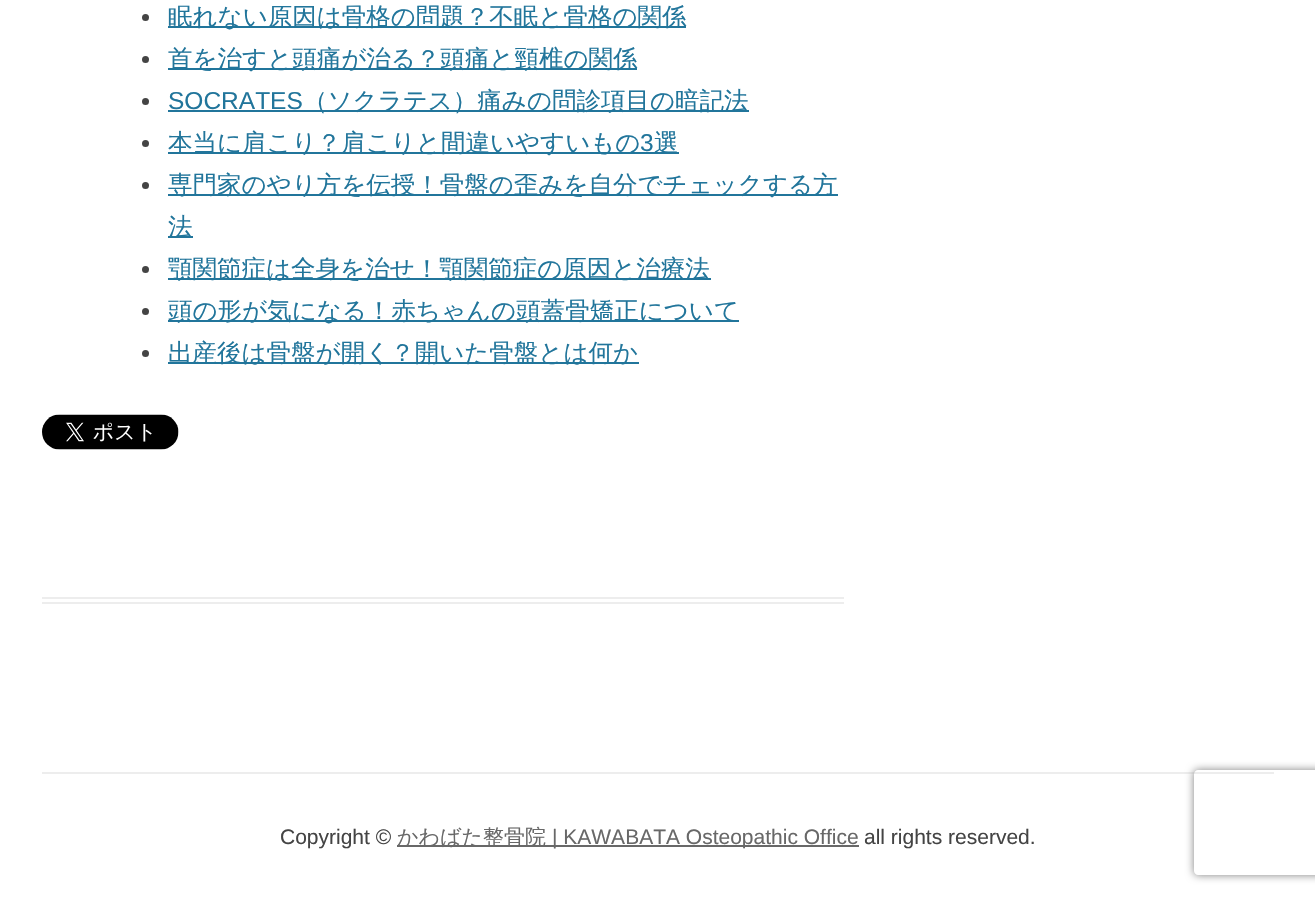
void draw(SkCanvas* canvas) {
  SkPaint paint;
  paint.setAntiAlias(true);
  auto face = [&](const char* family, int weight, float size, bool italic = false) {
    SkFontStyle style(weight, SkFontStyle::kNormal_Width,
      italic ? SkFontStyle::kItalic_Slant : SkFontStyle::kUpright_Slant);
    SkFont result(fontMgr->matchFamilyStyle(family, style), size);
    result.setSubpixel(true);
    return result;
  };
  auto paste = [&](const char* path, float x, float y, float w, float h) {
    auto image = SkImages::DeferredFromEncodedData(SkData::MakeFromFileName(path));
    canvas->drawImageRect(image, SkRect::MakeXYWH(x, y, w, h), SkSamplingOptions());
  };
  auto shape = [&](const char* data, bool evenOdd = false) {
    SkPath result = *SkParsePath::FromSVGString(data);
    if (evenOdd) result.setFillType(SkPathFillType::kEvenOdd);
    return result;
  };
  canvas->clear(0xffffffff);
  paint.setColor(0xffededed);
  canvas->drawRect(SkRect::MakeXYWH(42, 597, 802, 2), paint);
  canvas->drawRect(SkRect::MakeXYWH(42, 602, 802, 2), paint);
  paint.setColor(0xff444444);
  canvas->drawCircle(145.5f, 17.5f, 3.5f, paint);
  paint.setColor(0xff21759b);
  canvas->drawRect(SkRect::MakeXYWH(168, 26, 518, 2), paint);
  paint.setColor(0xff444444);
  canvas->drawCircle(145.5f, 59.5f, 3.5f, paint);
  paint.setColor(0xff21759b);
  canvas->drawRect(SkRect::MakeXYWH(168, 68, 469, 2), paint);
  paint.setColor(0xff444444);
  canvas->drawCircle(145.5f, 101.5f, 3.5f, paint);
  paint.setColor(0xff21759b);
  canvas->drawRect(SkRect::MakeXYWH(168, 110, 581, 2), paint);
  paint.setColor(0xff444444);
  canvas->drawCircle(145.5f, 143.5f, 3.5f, paint);
  paint.setColor(0xff21759b);
  canvas->drawRect(SkRect::MakeXYWH(168, 152, 511, 2), paint);
  paint.setColor(0xff444444);
  canvas->drawCircle(145.5f, 185.5f, 3.5f, paint);
  paint.setColor(0xff21759b);
  canvas->drawRect(SkRect::MakeXYWH(168, 194, 670, 2), paint);
  canvas->drawRect(SkRect::MakeXYWH(168, 236, 25, 2), paint);
  paint.setColor(0xff444444);
  canvas->drawCircle(145.5f, 269.5f, 3.5f, paint);
  paint.setColor(0xff21759b);
  canvas->drawRect(SkRect::MakeXYWH(168, 278, 543, 2), paint);
  paint.setColor(0xff444444);
  canvas->drawCircle(145.5f, 311.5f, 3.5f, paint);
  paint.setColor(0xff21759b);
  canvas->drawRect(SkRect::MakeXYWH(168, 320, 571, 2), paint);
  paint.setColor(0xff444444);
  canvas->drawCircle(145.5f, 353.5f, 3.5f, paint);
  paint.setColor(0xff21759b);
  canvas->drawRect(SkRect::MakeXYWH(168, 362, 471, 2), paint);
  paste("img/1.png", 42, 414, 137, 36);
  paint.setColor(0xffededed);
  canvas->drawRect(SkRect::MakeXYWH(42, 772, 1232, 2), paint);
  paint.setColor(0xff686868);
  canvas->drawRect(SkRect::MakeXYWH(397, 845, 462, 2), paint);
  canvas->save();
  canvas->clipPath(shape("M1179 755H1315V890H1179ZM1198 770H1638C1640 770 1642 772 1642 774V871C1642 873 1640 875 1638 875H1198C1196 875 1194 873 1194 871V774C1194 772 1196 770 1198 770Z", true), true);
  paint.setColor(0xff808080);
  paint.setMaskFilter(SkMaskFilter::MakeBlur(kNormal_SkBlurStyle, 4.5f));
  canvas->drawRoundRect(SkRect::MakeXYWH(1194, 770, 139, 105), 4, 4, paint);
  paint.setMaskFilter(nullptr);
  canvas->restore();
  auto f0 = face("WenQuanYi Zen Hei", 500, 24.5f);
  paint.setColor(0xff21759b);
  canvas->drawString("眠れない原因は骨格の問題？不眠と骨格の関係", 168, 25, f0, paint);
  canvas->drawString("首を治すと頭痛が治る？頭痛と頸椎の関係", 168, 67, f0, paint);
  auto f1 = face("Liberation Sans", 400, 24.5f);
  canvas->drawString("SOCRATES", 168, 109, f1, paint);
  canvas->drawString("（ソクラテス）痛みの問診項目の暗記法", 303, 109, f0, paint);
  canvas->drawString("本当に肩こり？肩こりと間違いやすいもの", 168, 151, f0, paint);
  canvas->drawString("3", 640, 151, f1, paint);
  {
    const struct { const char* s; float x, y; } items[] = {
      {"選", 654, 151},
      {"専門家のやり方を伝授！骨盤の歪みを自分でチェックする方", 168, 193},
      {"法", 168, 235},
      {"顎関節症は全身を治せ！顎関節症の原因と治療法", 168, 277},
      {"頭の形が気になる！赤ちゃんの頭蓋骨矯正について", 168, 319},
      {"出産後は骨盤が開く？開いた骨盤とは何か", 168, 361},
    };
    for (auto [s, x, y] : items) {
      canvas->drawString(s, x, y, f0, paint);
    }
  }
  auto f2 = face("Liberation Sans", 400, 21);
  paint.setColor(0xff444444);
  canvas->drawString("Copyright ©", 280, 844, f2, paint);
  auto f3 = face("WenQuanYi Zen Hei", 500, 21);
  paint.setColor(0xff686868);
  canvas->drawString("かわばた整骨院", 397, 844, f3, paint);
  canvas->drawString("| KAWABATA Osteopathic Office", 552, 844, f2, paint);
  paint.setColor(0xff444444);
  canvas->drawString("all rights reserved.", 864, 844, f2, paint);
}
